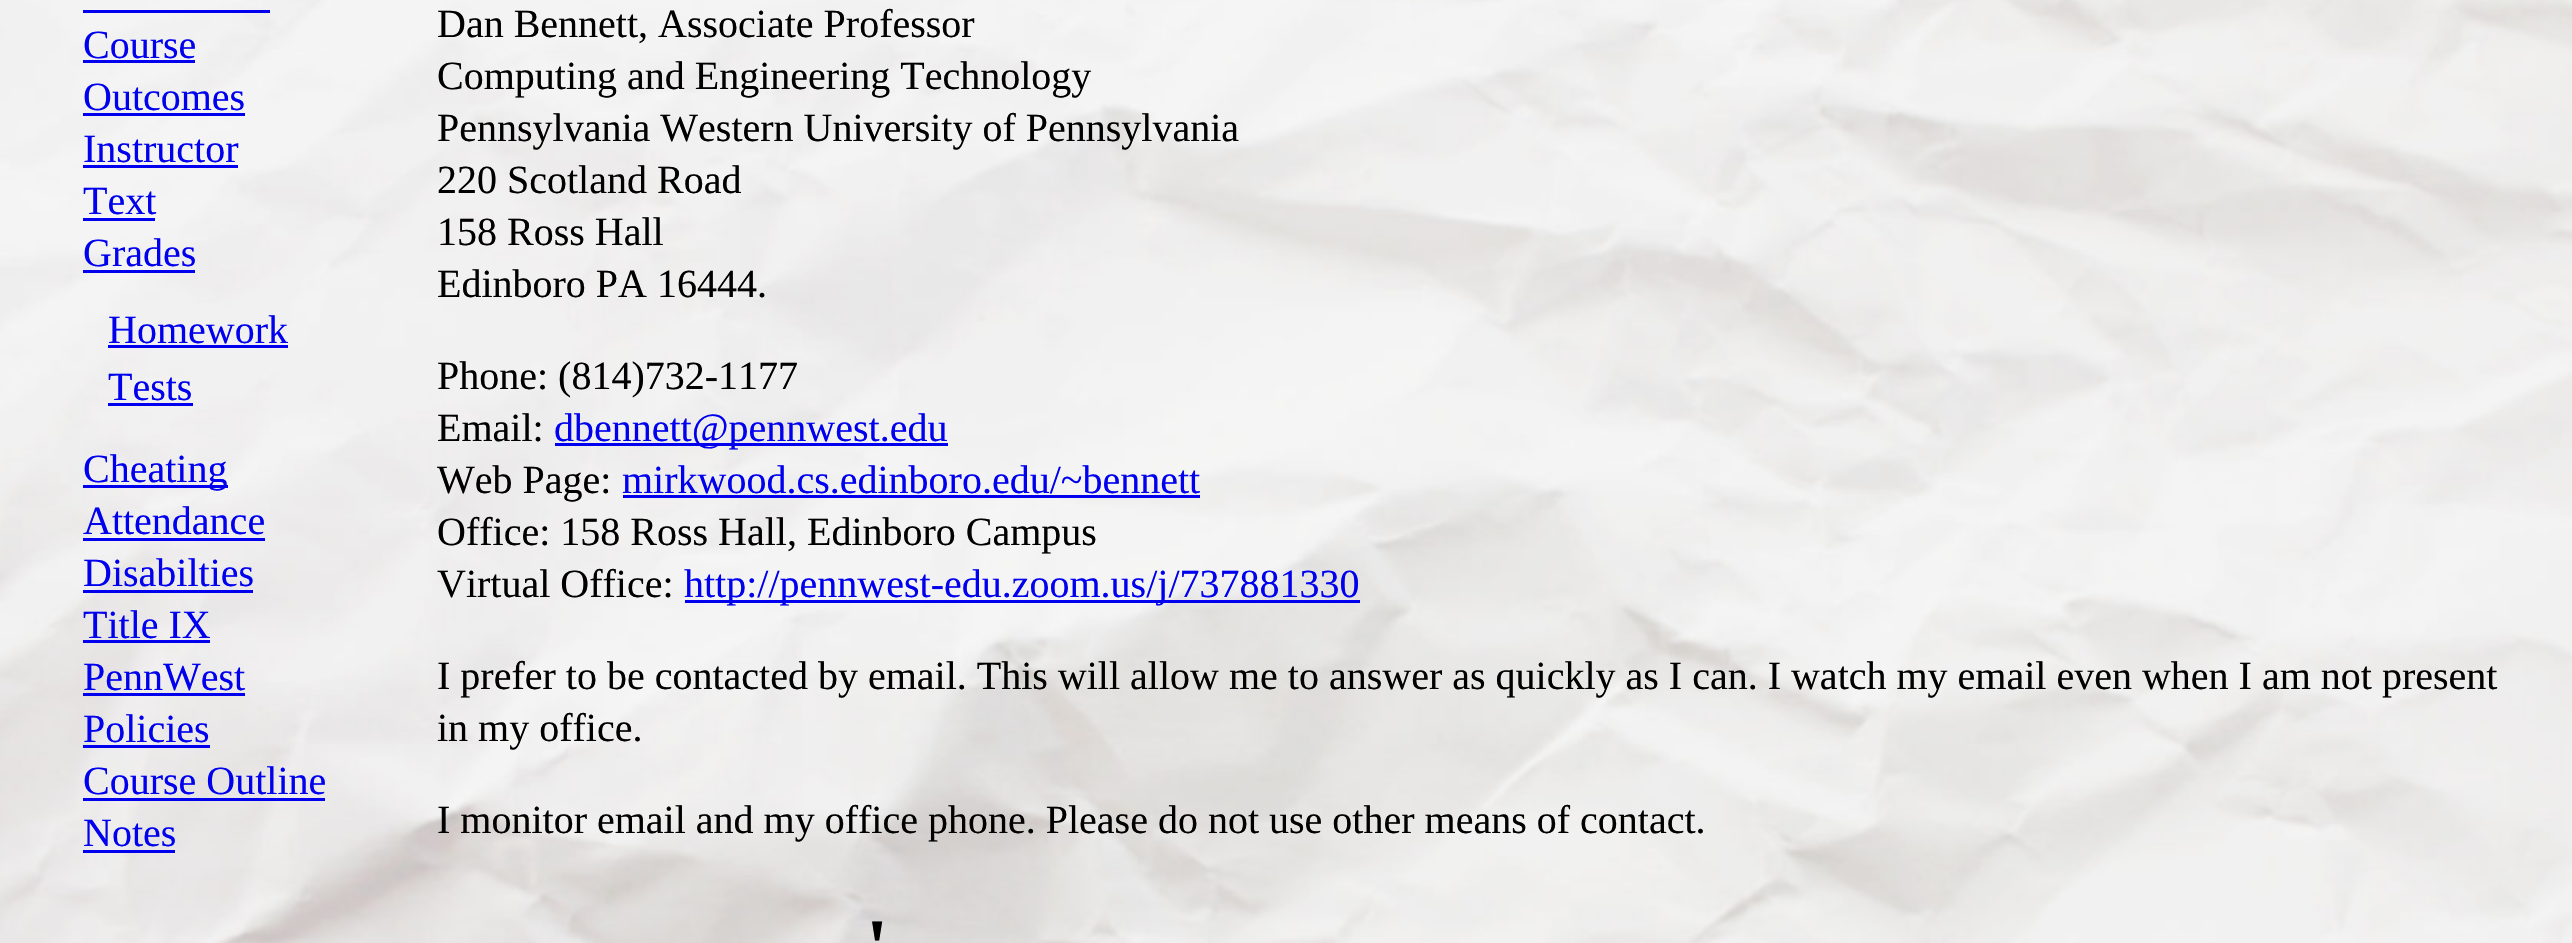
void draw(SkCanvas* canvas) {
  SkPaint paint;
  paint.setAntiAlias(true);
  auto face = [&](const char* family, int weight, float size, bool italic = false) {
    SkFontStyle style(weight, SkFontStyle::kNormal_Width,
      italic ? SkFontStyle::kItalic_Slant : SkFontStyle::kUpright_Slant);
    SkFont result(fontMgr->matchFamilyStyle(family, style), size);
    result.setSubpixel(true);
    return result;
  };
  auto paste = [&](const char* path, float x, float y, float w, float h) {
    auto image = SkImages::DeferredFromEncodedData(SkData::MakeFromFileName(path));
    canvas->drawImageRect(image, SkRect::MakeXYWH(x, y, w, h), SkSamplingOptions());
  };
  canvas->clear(0xffffffff);
  paste("img/1.png", 0, 0, 2572, 943);
  {
    const struct { float x, y, w, h; SkColor color; } items[] = {
      {83, 10, 187, 3, 0xff0000ee},
      {83, 60, 112, 3, 0xff0000ee},
      {83, 113, 162, 3, 0xff0000ee},
      {83, 165, 155, 3, 0xff0000ee},
      {83, 218, 72, 3, 0xff0000ee},
      {83, 270, 112, 3, 0xff0000ee},
      {108, 345, 180, 3, 0xff0000ee},
      {108, 403, 85, 3, 0xff0000ee},
      {83, 485, 145, 3, 0xff0000ee},
      {83, 538, 182, 3, 0xff0000ee},
      {83, 590, 170, 3, 0xff0000ee},
      {83, 640, 127, 3, 0xff0000ee},
      {83, 693, 162, 3, 0xff0000ee},
      {83, 745, 127, 3, 0xff0000ee},
      {83, 798, 242, 3, 0xff0000ee},
      {83, 850, 92, 3, 0xff0000ee},
      {555, 443, 393, 3, 0xff0000ee},
      {623, 495, 577, 3, 0xff0000ee},
      {685, 600, 675, 3, 0xff0000ee},
    };
    for (auto [x, y, w, h, color] : items) {
      paint.setColor(color);
      canvas->drawRect(SkRect::MakeXYWH(x, y, w, h), paint);
    }
  }
  auto f0 = face("Liberation Serif", 400, 40);
  {
    const struct { const char* s; float x, y; } items[] = {
      {"Course", 83, 58},
      {"Outcomes", 83, 110},
      {"Instructor", 83, 162},
      {"Text", 83, 214},
      {"Grades", 83, 266},
      {"Homework", 108, 343},
      {"Tests", 108, 400},
      {"Cheating", 83, 482},
      {"Attendance", 83, 534},
      {"Disabilties", 83, 586},
      {"Title IX", 83, 638},
      {"PennWest", 83, 690},
      {"Policies", 83, 742},
      {"Course Outline", 83, 794},
      {"Notes", 83, 846},
    };
    for (auto [s, x, y] : items) {
      canvas->drawString(s, x, y, f0, paint);
    }
  }
  paint.setColor(0xff000000);
  {
    const struct { const char* s; float x, y; } items[] = {
      {"Dan Bennett, Associate Professor", 437, 37},
      {"Computing and Engineering Technology", 437, 89},
      {"Pennsylvania Western University of Pennsylvania", 437, 141},
      {"220 Scotland Road", 437, 193},
      {"158 Ross Hall", 437, 245},
      {"Edinboro PA 16444.", 437, 297},
      {"Phone: (814)732-1177", 437, 389},
      {"Email:", 437, 441},
    };
    for (auto [s, x, y] : items) {
      canvas->drawString(s, x, y, f0, paint);
    }
  }
  paint.setColor(0xff0000ee);
  canvas->drawString("dbennett@pennwest.edu", 554, 441, f0, paint);
  paint.setColor(0xff000000);
  canvas->drawString("Web Page:", 437, 493, f0, paint);
  paint.setColor(0xff0000ee);
  canvas->drawString("mirkwood.cs.edinboro.edu/~bennett", 622, 493, f0, paint);
  paint.setColor(0xff000000);
  canvas->drawString("Office: 158 Ross Hall, Edinboro Campus", 437, 545, f0, paint);
  canvas->drawString("Virtual Office:", 437, 597, f0, paint);
  paint.setColor(0xff0000ee);
  canvas->drawString("http://pennwest-edu.zoom.us/j/737881330", 684, 597, f0, paint);
  paint.setColor(0xff000000);
  {
    const struct { const char* s; float x, y; } items[] = {
      {"I prefer to be contacted by email. This will allow me to answer as quickly as I can. I watch my email even when I am not present", 437, 689},
      {"in my office.", 437, 741},
      {"I monitor email and my office phone. Please do not use other means of contact.", 437, 833},
    };
    for (auto [s, x, y] : items) {
      canvas->drawString(s, x, y, f0, paint);
    }
  }
  auto f1 = face("Liberation Serif", 700, 80);
  canvas->drawString("'", 866, 974, f1, paint);
}
